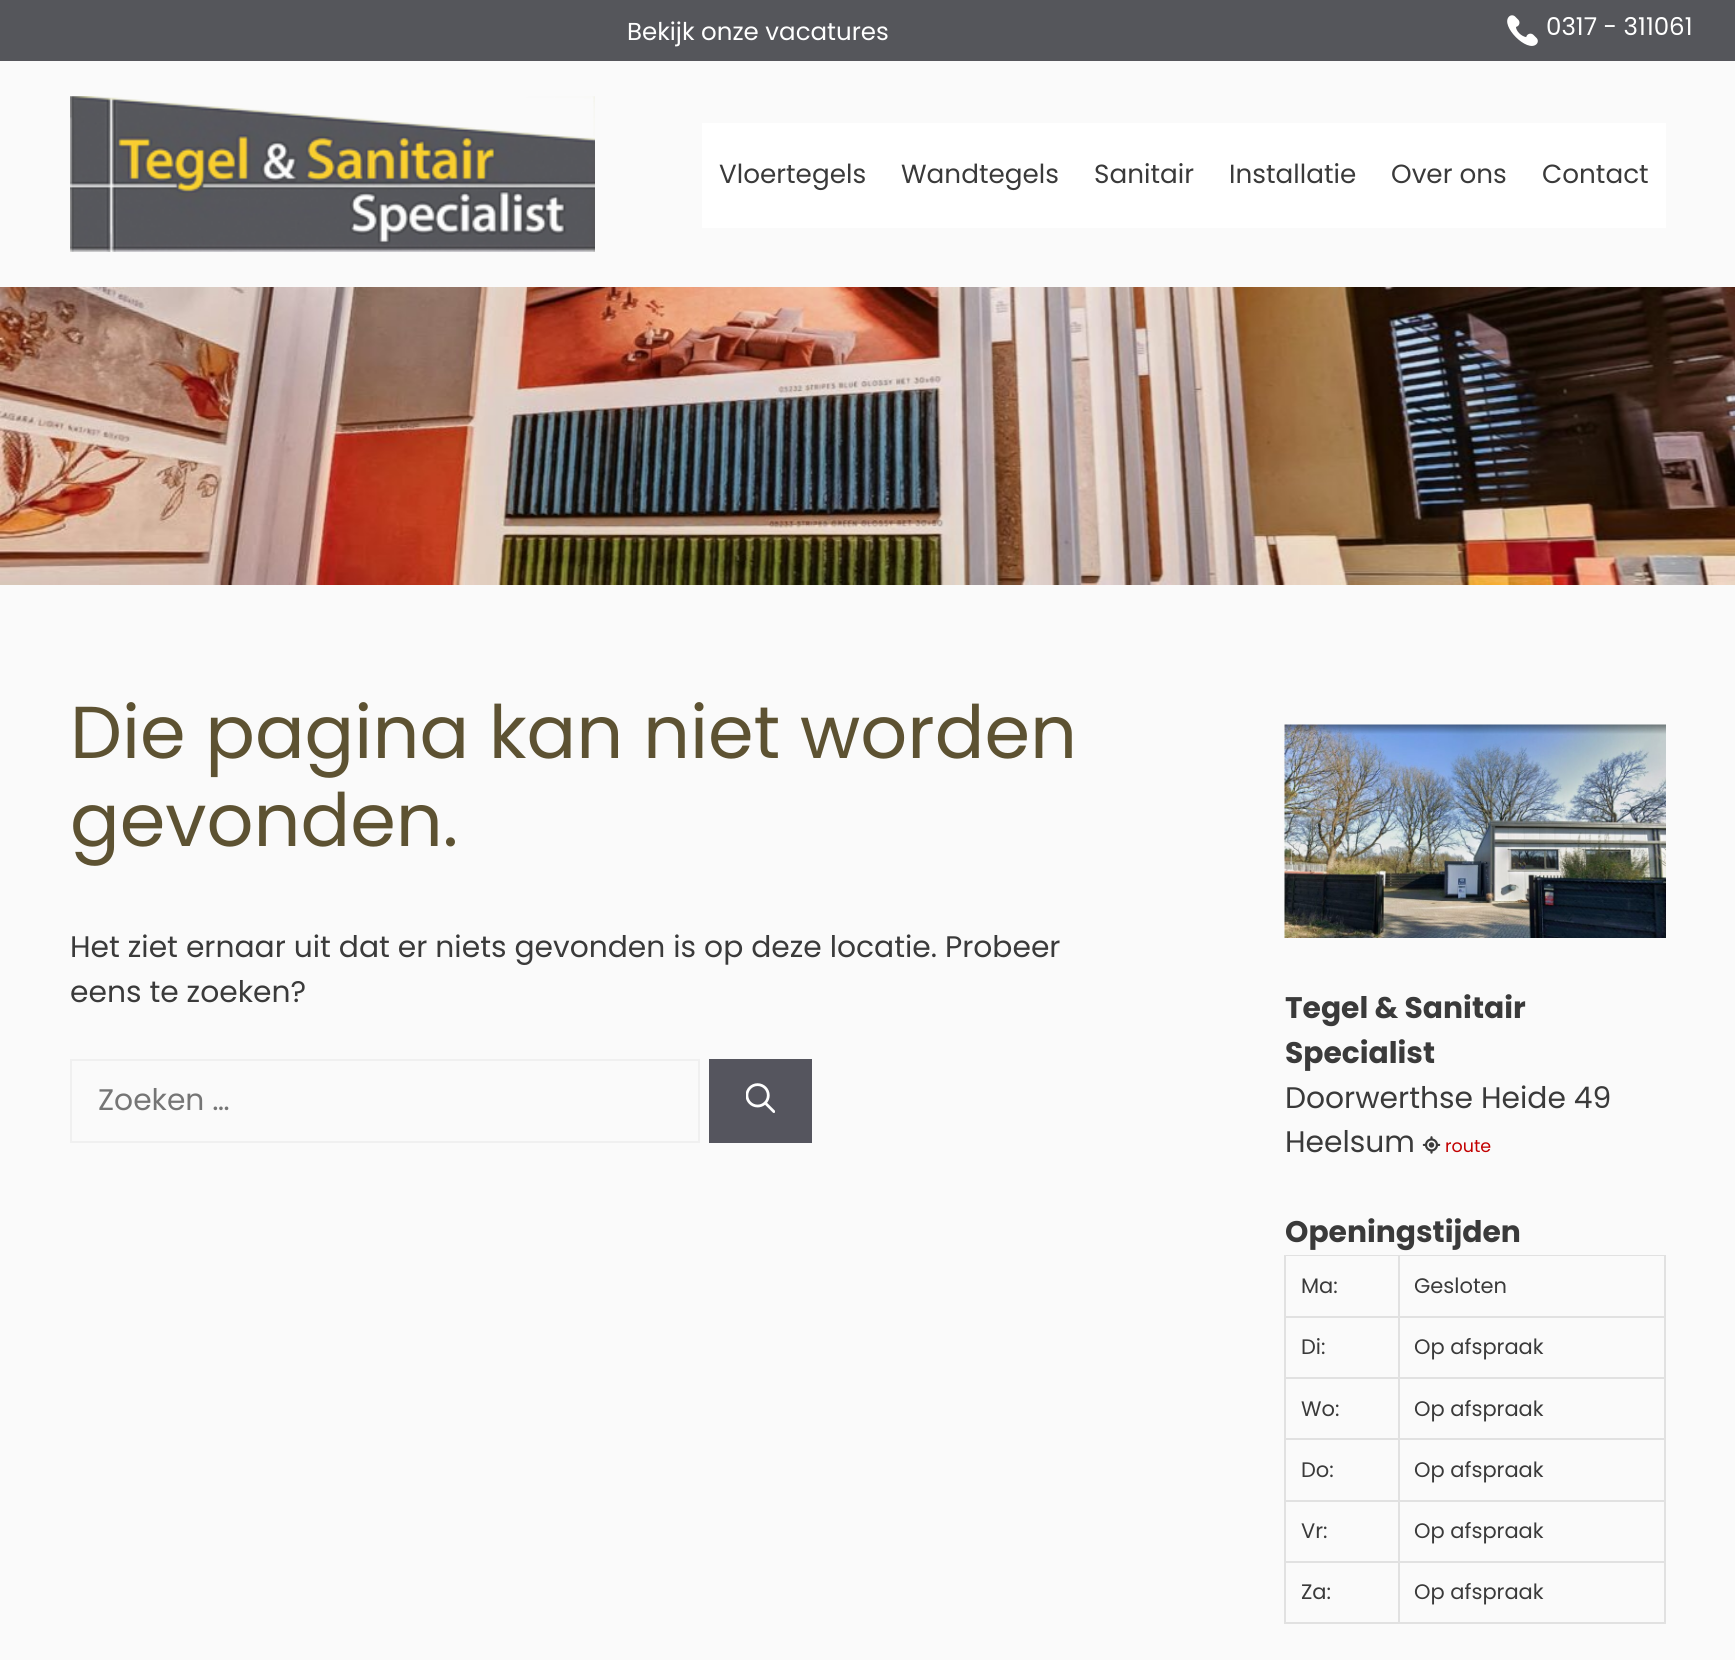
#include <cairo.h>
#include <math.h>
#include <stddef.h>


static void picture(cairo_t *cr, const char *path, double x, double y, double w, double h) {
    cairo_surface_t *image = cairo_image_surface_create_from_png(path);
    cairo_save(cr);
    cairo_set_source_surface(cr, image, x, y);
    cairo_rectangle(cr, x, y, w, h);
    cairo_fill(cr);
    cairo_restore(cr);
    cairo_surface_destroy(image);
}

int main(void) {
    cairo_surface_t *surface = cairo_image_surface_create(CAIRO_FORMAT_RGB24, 1735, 1660);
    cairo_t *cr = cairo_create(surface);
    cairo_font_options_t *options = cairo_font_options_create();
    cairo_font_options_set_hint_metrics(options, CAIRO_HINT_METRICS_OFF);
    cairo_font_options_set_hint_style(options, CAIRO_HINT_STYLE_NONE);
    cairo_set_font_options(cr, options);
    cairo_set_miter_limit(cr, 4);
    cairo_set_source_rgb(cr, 0.98, 0.98, 0.98);
    cairo_paint(cr);
    cairo_set_source_rgb(cr, 0.333, 0.337, 0.357);
    cairo_rectangle(cr, 0, 0, 1735, 61);
    cairo_fill(cr);
    cairo_select_font_face(cr, "Poppins", CAIRO_FONT_SLANT_NORMAL, CAIRO_FONT_WEIGHT_NORMAL);
    cairo_set_font_size(cr, 24.5);
    cairo_set_source_rgb(cr, 1, 1, 1);
    cairo_move_to(cr, 627, 40);
    cairo_show_text(cr, "Bekijk onze vacatures");
    picture(cr, "img1.png", 1507, 15, 31, 31);
    cairo_move_to(cr, 1546, 35);
    cairo_show_text(cr, "0317 - 311061");
    picture(cr, "img2.png", 70, 96, 525, 156);
    cairo_rectangle(cr, 702, 123, 964, 105);
    cairo_fill(cr);
    cairo_set_font_size(cr, 26.25);
    cairo_set_source_rgb(cr, 0.227, 0.227, 0.227);
    cairo_move_to(cr, 719, 183);
    cairo_show_text(cr, "Vloertegels");
    cairo_move_to(cr, 901, 183);
    cairo_show_text(cr, "Wandtegels");
    cairo_move_to(cr, 1094, 183);
    cairo_show_text(cr, "Sanitair");
    cairo_move_to(cr, 1229, 183);
    cairo_show_text(cr, "Installatie");
    cairo_move_to(cr, 1391, 183);
    cairo_show_text(cr, "Over ons");
    cairo_move_to(cr, 1542, 183);
    cairo_show_text(cr, "Contact");
    picture(cr, "img3.png", 0, 287, 1735, 298);
    cairo_set_font_size(cr, 73.5);
    cairo_set_source_rgb(cr, 0.365, 0.322, 0.196);
    cairo_move_to(cr, 70, 758);
    cairo_show_text(cr, "Die pagina kan niet worden");
    cairo_move_to(cr, 70, 846);
    cairo_show_text(cr, "gevonden.");
    cairo_set_font_size(cr, 29.75);
    cairo_set_source_rgb(cr, 0.227, 0.227, 0.227);
    cairo_move_to(cr, 70, 957);
    cairo_show_text(cr, "Het ziet ernaar uit dat er niets gevonden is op deze locatie. Probeer");
    cairo_move_to(cr, 70, 1002);
    cairo_show_text(cr, "eens te zoeken?");
    cairo_rectangle(cr, 71, 1060, 628, 82);
    cairo_set_source_rgb(cr, 0.941, 0.941, 0.941);
    cairo_stroke(cr);
    cairo_set_source_rgb(cr, 0.459, 0.459, 0.459);
    cairo_move_to(cr, 98, 1110);
    cairo_show_text(cr, "Zoeken …");
    cairo_set_source_rgb(cr, 0.333, 0.333, 0.369);
    cairo_rectangle(cr, 709, 1059, 103, 84);
    cairo_fill(cr);
    picture(cr, "img4.png", 746, 1083, 29, 30);
    picture(cr, "img5.png", 1284, 724, 382, 214);
    cairo_select_font_face(cr, "Poppins", CAIRO_FONT_SLANT_NORMAL, CAIRO_FONT_WEIGHT_BOLD);
    cairo_set_source_rgb(cr, 0.227, 0.227, 0.227);
    cairo_move_to(cr, 1285, 1018);
    cairo_show_text(cr, "Tegel & Sanitair");
    cairo_move_to(cr, 1285, 1063);
    cairo_show_text(cr, "Specialist");
    cairo_select_font_face(cr, "Poppins", CAIRO_FONT_SLANT_NORMAL, CAIRO_FONT_WEIGHT_NORMAL);
    cairo_move_to(cr, 1285, 1108);
    cairo_show_text(cr, "Doorwerthse Heide 49");
    cairo_move_to(cr, 1285, 1152);
    cairo_show_text(cr, "Heelsum");
    picture(cr, "img6.png", 1422, 1136, 19, 18);
    cairo_set_font_size(cr, 17.5);
    cairo_set_source_rgb(cr, 0.761, 0, 0);
    cairo_move_to(cr, 1445, 1152);
    cairo_show_text(cr, "route");
    cairo_select_font_face(cr, "Poppins", CAIRO_FONT_SLANT_NORMAL, CAIRO_FONT_WEIGHT_BOLD);
    cairo_set_font_size(cr, 29.75);
    cairo_set_source_rgb(cr, 0.227, 0.227, 0.227);
    cairo_move_to(cr, 1285, 1242);
    cairo_show_text(cr, "Openingstijden");
    cairo_set_source_rgb(cr, 0.882, 0.882, 0.882);
    cairo_new_path(cr);
    cairo_move_to(cr, 1284, 1255);
    cairo_line_to(cr, 1666, 1255);
    cairo_line_to(cr, 1666, 1256);
    cairo_line_to(cr, 1286, 1256);
    cairo_close_path(cr);
    cairo_fill(cr);
    cairo_set_source_rgba(cr, 0, 0, 0, 0.1);
    cairo_new_path(cr);
    cairo_move_to(cr, 1284, 1624);
    cairo_line_to(cr, 1284, 1255);
    cairo_line_to(cr, 1286, 1256);
    cairo_line_to(cr, 1286, 1624);
    cairo_close_path(cr);
    cairo_fill(cr);
    cairo_set_source_rgb(cr, 0.882, 0.882, 0.882);
    cairo_new_path(cr);
    cairo_move_to(cr, 1400, 1256);
    cairo_line_to(cr, 1400, 1318);
    cairo_line_to(cr, 1398, 1316);
    cairo_line_to(cr, 1398, 1256);
    cairo_close_path(cr);
    cairo_fill(cr);
    cairo_set_source_rgba(cr, 0, 0, 0, 0.1);
    cairo_new_path(cr);
    cairo_move_to(cr, 1400, 1318);
    cairo_line_to(cr, 1286, 1318);
    cairo_line_to(cr, 1286, 1316);
    cairo_line_to(cr, 1398, 1316);
    cairo_close_path(cr);
    cairo_fill(cr);
    cairo_select_font_face(cr, "Poppins", CAIRO_FONT_SLANT_NORMAL, CAIRO_FONT_WEIGHT_NORMAL);
    cairo_set_font_size(cr, 21);
    cairo_set_source_rgb(cr, 0.227, 0.227, 0.227);
    cairo_move_to(cr, 1301, 1293);
    cairo_show_text(cr, "Ma:");
    cairo_set_source_rgb(cr, 0.882, 0.882, 0.882);
    cairo_new_path(cr);
    cairo_move_to(cr, 1666, 1256);
    cairo_line_to(cr, 1666, 1318);
    cairo_line_to(cr, 1664, 1316);
    cairo_line_to(cr, 1664, 1256);
    cairo_close_path(cr);
    cairo_fill(cr);
    cairo_set_source_rgba(cr, 0, 0, 0, 0.1);
    cairo_new_path(cr);
    cairo_move_to(cr, 1666, 1318);
    cairo_line_to(cr, 1400, 1318);
    cairo_line_to(cr, 1400, 1316);
    cairo_line_to(cr, 1664, 1316);
    cairo_close_path(cr);
    cairo_fill(cr);
    cairo_set_source_rgb(cr, 0.227, 0.227, 0.227);
    cairo_move_to(cr, 1414, 1293);
    cairo_show_text(cr, "Gesloten");
    cairo_set_source_rgb(cr, 0.882, 0.882, 0.882);
    cairo_new_path(cr);
    cairo_move_to(cr, 1400, 1318);
    cairo_line_to(cr, 1400, 1379);
    cairo_line_to(cr, 1398, 1377);
    cairo_line_to(cr, 1398, 1318);
    cairo_close_path(cr);
    cairo_fill(cr);
    cairo_set_source_rgba(cr, 0, 0, 0, 0.1);
    cairo_new_path(cr);
    cairo_move_to(cr, 1400, 1379);
    cairo_line_to(cr, 1286, 1379);
    cairo_line_to(cr, 1286, 1377);
    cairo_line_to(cr, 1398, 1377);
    cairo_close_path(cr);
    cairo_fill(cr);
    cairo_set_source_rgb(cr, 0.227, 0.227, 0.227);
    cairo_move_to(cr, 1301, 1354);
    cairo_show_text(cr, "Di:");
    cairo_set_source_rgb(cr, 0.882, 0.882, 0.882);
    cairo_new_path(cr);
    cairo_move_to(cr, 1666, 1318);
    cairo_line_to(cr, 1666, 1379);
    cairo_line_to(cr, 1664, 1377);
    cairo_line_to(cr, 1664, 1318);
    cairo_close_path(cr);
    cairo_fill(cr);
    cairo_set_source_rgba(cr, 0, 0, 0, 0.1);
    cairo_new_path(cr);
    cairo_move_to(cr, 1666, 1379);
    cairo_line_to(cr, 1400, 1379);
    cairo_line_to(cr, 1400, 1377);
    cairo_line_to(cr, 1664, 1377);
    cairo_close_path(cr);
    cairo_fill(cr);
    cairo_set_source_rgb(cr, 0.227, 0.227, 0.227);
    cairo_move_to(cr, 1414, 1354);
    cairo_show_text(cr, "Op afspraak");
    cairo_set_source_rgb(cr, 0.882, 0.882, 0.882);
    cairo_new_path(cr);
    cairo_move_to(cr, 1400, 1379);
    cairo_line_to(cr, 1400, 1440);
    cairo_line_to(cr, 1398, 1438);
    cairo_line_to(cr, 1398, 1379);
    cairo_close_path(cr);
    cairo_fill(cr);
    cairo_set_source_rgba(cr, 0, 0, 0, 0.1);
    cairo_new_path(cr);
    cairo_move_to(cr, 1400, 1440);
    cairo_line_to(cr, 1286, 1440);
    cairo_line_to(cr, 1286, 1438);
    cairo_line_to(cr, 1398, 1438);
    cairo_close_path(cr);
    cairo_fill(cr);
    cairo_set_source_rgb(cr, 0.227, 0.227, 0.227);
    cairo_move_to(cr, 1301, 1416);
    cairo_show_text(cr, "Wo:");
    cairo_set_source_rgb(cr, 0.882, 0.882, 0.882);
    cairo_new_path(cr);
    cairo_move_to(cr, 1666, 1379);
    cairo_line_to(cr, 1666, 1440);
    cairo_line_to(cr, 1664, 1438);
    cairo_line_to(cr, 1664, 1379);
    cairo_close_path(cr);
    cairo_fill(cr);
    cairo_set_source_rgba(cr, 0, 0, 0, 0.1);
    cairo_new_path(cr);
    cairo_move_to(cr, 1666, 1440);
    cairo_line_to(cr, 1400, 1440);
    cairo_line_to(cr, 1400, 1438);
    cairo_line_to(cr, 1664, 1438);
    cairo_close_path(cr);
    cairo_fill(cr);
    cairo_set_source_rgb(cr, 0.227, 0.227, 0.227);
    cairo_move_to(cr, 1414, 1416);
    cairo_show_text(cr, "Op afspraak");
    cairo_set_source_rgb(cr, 0.882, 0.882, 0.882);
    cairo_new_path(cr);
    cairo_move_to(cr, 1400, 1440);
    cairo_line_to(cr, 1400, 1502);
    cairo_line_to(cr, 1398, 1500);
    cairo_line_to(cr, 1398, 1440);
    cairo_close_path(cr);
    cairo_fill(cr);
    cairo_set_source_rgba(cr, 0, 0, 0, 0.1);
    cairo_new_path(cr);
    cairo_move_to(cr, 1400, 1502);
    cairo_line_to(cr, 1286, 1502);
    cairo_line_to(cr, 1286, 1500);
    cairo_line_to(cr, 1398, 1500);
    cairo_close_path(cr);
    cairo_fill(cr);
    cairo_set_source_rgb(cr, 0.227, 0.227, 0.227);
    cairo_move_to(cr, 1301, 1477);
    cairo_show_text(cr, "Do:");
    cairo_set_source_rgb(cr, 0.882, 0.882, 0.882);
    cairo_new_path(cr);
    cairo_move_to(cr, 1666, 1440);
    cairo_line_to(cr, 1666, 1502);
    cairo_line_to(cr, 1664, 1500);
    cairo_line_to(cr, 1664, 1440);
    cairo_close_path(cr);
    cairo_fill(cr);
    cairo_set_source_rgba(cr, 0, 0, 0, 0.1);
    cairo_new_path(cr);
    cairo_move_to(cr, 1666, 1502);
    cairo_line_to(cr, 1400, 1502);
    cairo_line_to(cr, 1400, 1500);
    cairo_line_to(cr, 1664, 1500);
    cairo_close_path(cr);
    cairo_fill(cr);
    cairo_set_source_rgb(cr, 0.227, 0.227, 0.227);
    cairo_move_to(cr, 1414, 1477);
    cairo_show_text(cr, "Op afspraak");
    cairo_set_source_rgb(cr, 0.882, 0.882, 0.882);
    cairo_new_path(cr);
    cairo_move_to(cr, 1400, 1502);
    cairo_line_to(cr, 1400, 1563);
    cairo_line_to(cr, 1398, 1561);
    cairo_line_to(cr, 1398, 1502);
    cairo_close_path(cr);
    cairo_fill(cr);
    cairo_set_source_rgba(cr, 0, 0, 0, 0.1);
    cairo_new_path(cr);
    cairo_move_to(cr, 1400, 1563);
    cairo_line_to(cr, 1286, 1563);
    cairo_line_to(cr, 1286, 1561);
    cairo_line_to(cr, 1398, 1561);
    cairo_close_path(cr);
    cairo_fill(cr);
    cairo_set_source_rgb(cr, 0.227, 0.227, 0.227);
    cairo_move_to(cr, 1301, 1538);
    cairo_show_text(cr, "Vr:");
    cairo_set_source_rgb(cr, 0.882, 0.882, 0.882);
    cairo_new_path(cr);
    cairo_move_to(cr, 1666, 1502);
    cairo_line_to(cr, 1666, 1563);
    cairo_line_to(cr, 1664, 1561);
    cairo_line_to(cr, 1664, 1502);
    cairo_close_path(cr);
    cairo_fill(cr);
    cairo_set_source_rgba(cr, 0, 0, 0, 0.1);
    cairo_new_path(cr);
    cairo_move_to(cr, 1666, 1563);
    cairo_line_to(cr, 1400, 1563);
    cairo_line_to(cr, 1400, 1561);
    cairo_line_to(cr, 1664, 1561);
    cairo_close_path(cr);
    cairo_fill(cr);
    cairo_set_source_rgb(cr, 0.227, 0.227, 0.227);
    cairo_move_to(cr, 1414, 1538);
    cairo_show_text(cr, "Op afspraak");
    cairo_set_source_rgb(cr, 0.882, 0.882, 0.882);
    cairo_new_path(cr);
    cairo_move_to(cr, 1400, 1563);
    cairo_line_to(cr, 1400, 1624);
    cairo_line_to(cr, 1398, 1622);
    cairo_line_to(cr, 1398, 1563);
    cairo_close_path(cr);
    cairo_fill(cr);
    cairo_set_source_rgba(cr, 0, 0, 0, 0.1);
    cairo_new_path(cr);
    cairo_move_to(cr, 1400, 1624);
    cairo_line_to(cr, 1286, 1624);
    cairo_line_to(cr, 1286, 1622);
    cairo_line_to(cr, 1398, 1622);
    cairo_close_path(cr);
    cairo_fill(cr);
    cairo_set_source_rgb(cr, 0.227, 0.227, 0.227);
    cairo_move_to(cr, 1301, 1599);
    cairo_show_text(cr, "Za:");
    cairo_set_source_rgb(cr, 0.882, 0.882, 0.882);
    cairo_new_path(cr);
    cairo_move_to(cr, 1666, 1563);
    cairo_line_to(cr, 1666, 1624);
    cairo_line_to(cr, 1664, 1622);
    cairo_line_to(cr, 1664, 1563);
    cairo_close_path(cr);
    cairo_fill(cr);
    cairo_set_source_rgba(cr, 0, 0, 0, 0.1);
    cairo_new_path(cr);
    cairo_move_to(cr, 1666, 1624);
    cairo_line_to(cr, 1400, 1624);
    cairo_line_to(cr, 1400, 1622);
    cairo_line_to(cr, 1664, 1622);
    cairo_close_path(cr);
    cairo_fill(cr);
    cairo_set_source_rgb(cr, 0.227, 0.227, 0.227);
    cairo_move_to(cr, 1414, 1599);
    cairo_show_text(cr, "Op afspraak");
    cairo_surface_write_to_png(surface, "page.png");
    cairo_font_options_destroy(options);
    cairo_destroy(cr);
    cairo_surface_destroy(surface);
    return 0;
}
